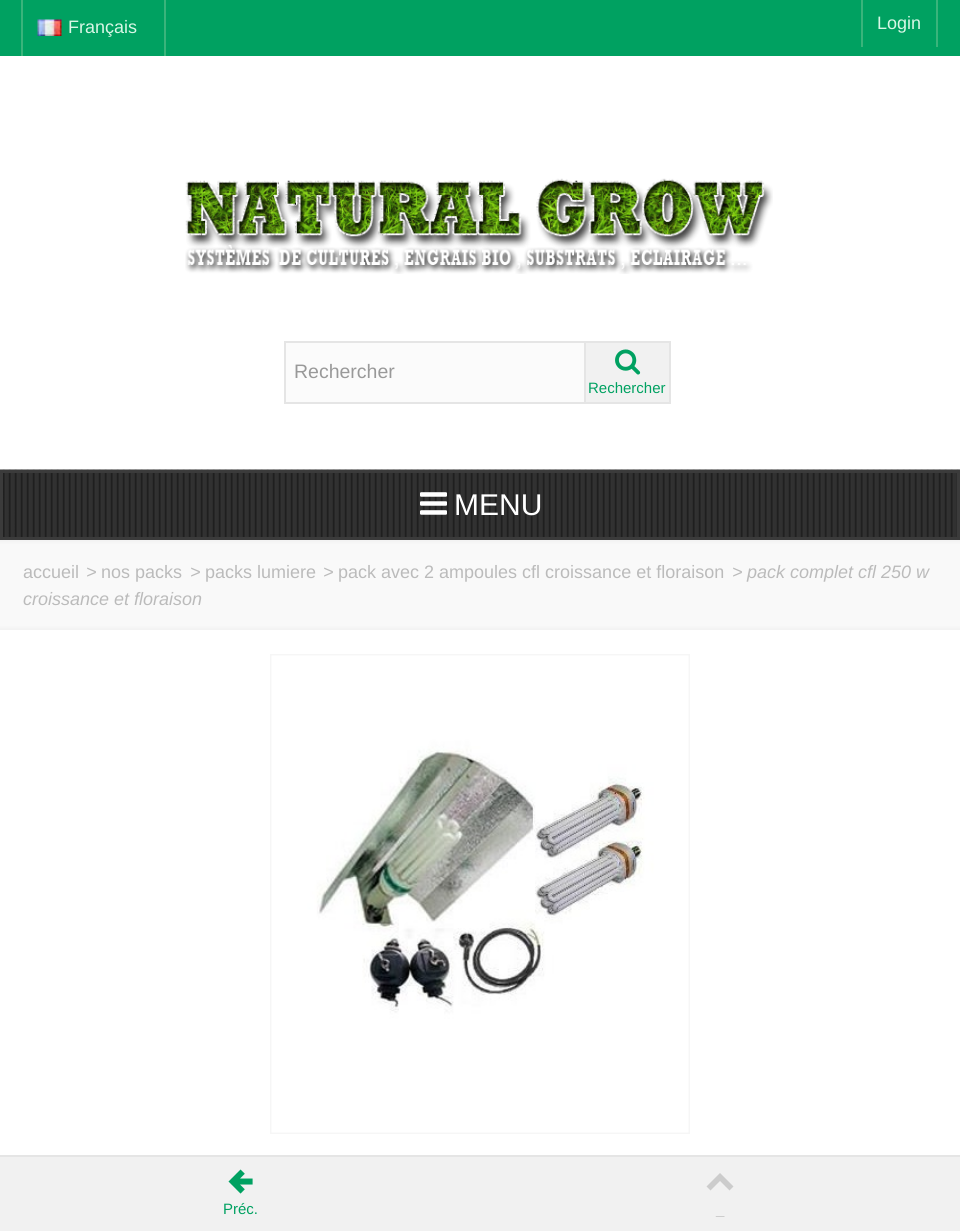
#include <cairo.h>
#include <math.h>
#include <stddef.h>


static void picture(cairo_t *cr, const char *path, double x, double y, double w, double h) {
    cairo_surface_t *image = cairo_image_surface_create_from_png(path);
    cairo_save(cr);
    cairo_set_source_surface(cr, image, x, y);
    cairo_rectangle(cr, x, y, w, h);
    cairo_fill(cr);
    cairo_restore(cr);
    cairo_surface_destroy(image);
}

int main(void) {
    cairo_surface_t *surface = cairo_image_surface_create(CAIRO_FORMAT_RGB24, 960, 1231);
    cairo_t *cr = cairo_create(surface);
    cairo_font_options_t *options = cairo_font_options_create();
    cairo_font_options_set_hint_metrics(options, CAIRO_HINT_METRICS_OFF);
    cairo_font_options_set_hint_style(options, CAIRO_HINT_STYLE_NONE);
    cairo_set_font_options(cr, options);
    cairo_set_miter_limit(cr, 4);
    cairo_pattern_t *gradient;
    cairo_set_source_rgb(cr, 1, 1, 1);
    cairo_paint(cr);
    cairo_set_source_rgb(cr, 0, 0.631, 0.38);
    cairo_rectangle(cr, 0, 0, 960, 56);
    cairo_fill(cr);
    cairo_set_source_rgb(cr, 0.227, 0.706, 0.482);
    cairo_rectangle(cr, 164, 0, 2, 56);
    cairo_fill(cr);
    cairo_rectangle(cr, 21, 0, 2, 56);
    cairo_fill(cr);
    picture(cr, "img1.png", 37, 19, 25, 17);
    cairo_select_font_face(cr, "Liberation Sans", CAIRO_FONT_SLANT_NORMAL, CAIRO_FONT_WEIGHT_NORMAL);
    cairo_set_font_size(cr, 18);
    cairo_set_source_rgb(cr, 0.847, 0.965, 0.902);
    cairo_move_to(cr, 68, 33);
    cairo_show_text(cr, "Français");
    cairo_set_source_rgb(cr, 0.227, 0.706, 0.482);
    cairo_rectangle(cr, 936, 0, 2, 47);
    cairo_fill(cr);
    cairo_rectangle(cr, 861, 0, 2, 47);
    cairo_fill(cr);
    cairo_set_source_rgb(cr, 0.847, 0.965, 0.902);
    cairo_move_to(cr, 877, 29);
    cairo_show_text(cr, "Login");
    picture(cr, "img2.png", 185, 178, 588, 96);
    cairo_set_source_rgb(cr, 0.984, 0.984, 0.984);
    cairo_rectangle(cr, 286, 343, 298, 59);
    cairo_fill(cr);
    cairo_set_source_rgb(cr, 0.898, 0.898, 0.898);
    cairo_rectangle(cr, 284, 341, 300, 2);
    cairo_fill(cr);
    cairo_rectangle(cr, 284, 402, 300, 2);
    cairo_fill(cr);
    cairo_rectangle(cr, 284, 341, 2, 63);
    cairo_fill(cr);
    cairo_set_font_size(cr, 19.5);
    cairo_set_source_rgb(cr, 0.6, 0.6, 0.6);
    cairo_move_to(cr, 294, 378);
    cairo_show_text(cr, "Rechercher");
    cairo_set_source_rgb(cr, 0.945, 0.945, 0.945);
    cairo_rectangle(cr, 585, 342, 85, 61);
    cairo_fill_preserve(cr);
    cairo_set_source_rgb(cr, 0.898, 0.898, 0.898);
    cairo_stroke(cr);
    picture(cr, "img3.png", 615, 349, 26, 26);
    cairo_set_font_size(cr, 15);
    cairo_set_source_rgb(cr, 0, 0.631, 0.38);
    cairo_move_to(cr, 588, 393);
    cairo_show_text(cr, "Rechercher");
    picture(cr, "img4.png", 0, 469, 960, 68);
    cairo_rectangle(cr, 1.5, 471.5, 957, 67);
    cairo_set_source_rgb(cr, 0.231, 0.231, 0.231);
    cairo_set_line_width(cr, 3);
    cairo_stroke(cr);
    picture(cr, "img5.png", 420, 492, 27, 23);
    cairo_set_font_size(cr, 30);
    cairo_set_source_rgb(cr, 1, 1, 1);
    cairo_move_to(cr, 454, 515);
    cairo_show_text(cr, "MENU");
    gradient = cairo_pattern_create_linear(480, 540, 480, 630);
    cairo_pattern_add_color_stop_rgba(gradient, 0, 0.949, 0.949, 0.949, 1);
    cairo_pattern_add_color_stop_rgba(gradient, 0.05, 0.976, 0.976, 0.976, 1);
    cairo_pattern_add_color_stop_rgba(gradient, 0.95, 0.976, 0.976, 0.976, 1);
    cairo_pattern_add_color_stop_rgba(gradient, 1, 0.949, 0.949, 0.949, 1);
    cairo_set_source(cr, gradient);
    cairo_pattern_destroy(gradient);
    cairo_rectangle(cr, 0, 540, 960, 90);
    cairo_fill(cr);
    cairo_set_font_size(cr, 18);
    cairo_set_source_rgb(cr, 0.733, 0.733, 0.733);
    cairo_move_to(cr, 23, 578);
    cairo_show_text(cr, "accueil");
    cairo_select_font_face(cr, "Liberation Sans", CAIRO_FONT_SLANT_ITALIC, CAIRO_FONT_WEIGHT_NORMAL);
    cairo_move_to(cr, 86, 578);
    cairo_show_text(cr, ">");
    cairo_select_font_face(cr, "Liberation Sans", CAIRO_FONT_SLANT_NORMAL, CAIRO_FONT_WEIGHT_NORMAL);
    cairo_move_to(cr, 101, 578);
    cairo_show_text(cr, "nos packs");
    cairo_select_font_face(cr, "Liberation Sans", CAIRO_FONT_SLANT_ITALIC, CAIRO_FONT_WEIGHT_NORMAL);
    cairo_move_to(cr, 190, 578);
    cairo_show_text(cr, ">");
    cairo_select_font_face(cr, "Liberation Sans", CAIRO_FONT_SLANT_NORMAL, CAIRO_FONT_WEIGHT_NORMAL);
    cairo_move_to(cr, 205, 578);
    cairo_show_text(cr, "packs lumiere");
    cairo_select_font_face(cr, "Liberation Sans", CAIRO_FONT_SLANT_ITALIC, CAIRO_FONT_WEIGHT_NORMAL);
    cairo_move_to(cr, 323, 578);
    cairo_show_text(cr, ">");
    cairo_select_font_face(cr, "Liberation Sans", CAIRO_FONT_SLANT_NORMAL, CAIRO_FONT_WEIGHT_NORMAL);
    cairo_move_to(cr, 338, 578);
    cairo_show_text(cr, "pack avec 2 ampoules cfl croissance et floraison");
    cairo_select_font_face(cr, "Liberation Sans", CAIRO_FONT_SLANT_ITALIC, CAIRO_FONT_WEIGHT_NORMAL);
    cairo_move_to(cr, 732, 578);
    cairo_show_text(cr, ">");
    cairo_move_to(cr, 747, 578);
    cairo_show_text(cr, "pack complet cfl 250 w");
    cairo_move_to(cr, 23, 605);
    cairo_show_text(cr, "croissance et floraison");
    cairo_rectangle(cr, 271, 655, 418, 478);
    cairo_set_source_rgb(cr, 0.961, 0.961, 0.961);
    cairo_set_line_width(cr, 2);
    cairo_stroke(cr);
    picture(cr, "img6.png", 271, 655, 418, 478);
    cairo_set_source_rgb(cr, 0.945, 0.945, 0.945);
    cairo_rectangle(cr, 0, 1157, 960, 74);
    cairo_fill(cr);
    cairo_set_source_rgb(cr, 0.898, 0.898, 0.898);
    cairo_rectangle(cr, 0, 1155, 960, 2);
    cairo_fill(cr);
    picture(cr, "img7.png", 228, 1169, 25, 25);
    cairo_select_font_face(cr, "Liberation Sans", CAIRO_FONT_SLANT_NORMAL, CAIRO_FONT_WEIGHT_NORMAL);
    cairo_set_font_size(cr, 15);
    cairo_set_source_rgb(cr, 0, 0.631, 0.38);
    cairo_move_to(cr, 223, 1214);
    cairo_show_text(cr, "Préc.");
    cairo_set_source_rgb(cr, 0.8, 0.8, 0.8);
    cairo_new_path(cr);
    cairo_move_to(cr, 706.5, 1186.5);
    cairo_line_to(cr, 720, 1173);
    cairo_line_to(cr, 733.5, 1186.5);
    cairo_line_to(cr, 729.5, 1190.5);
    cairo_line_to(cr, 720, 1181);
    cairo_line_to(cr, 710.5, 1190.5);
    cairo_close_path(cr);
    cairo_fill(cr);
    cairo_move_to(cr, 716, 1214);
    cairo_show_text(cr, "_");
    cairo_surface_write_to_png(surface, "page.png");
    cairo_font_options_destroy(options);
    cairo_destroy(cr);
    cairo_surface_destroy(surface);
    return 0;
}
